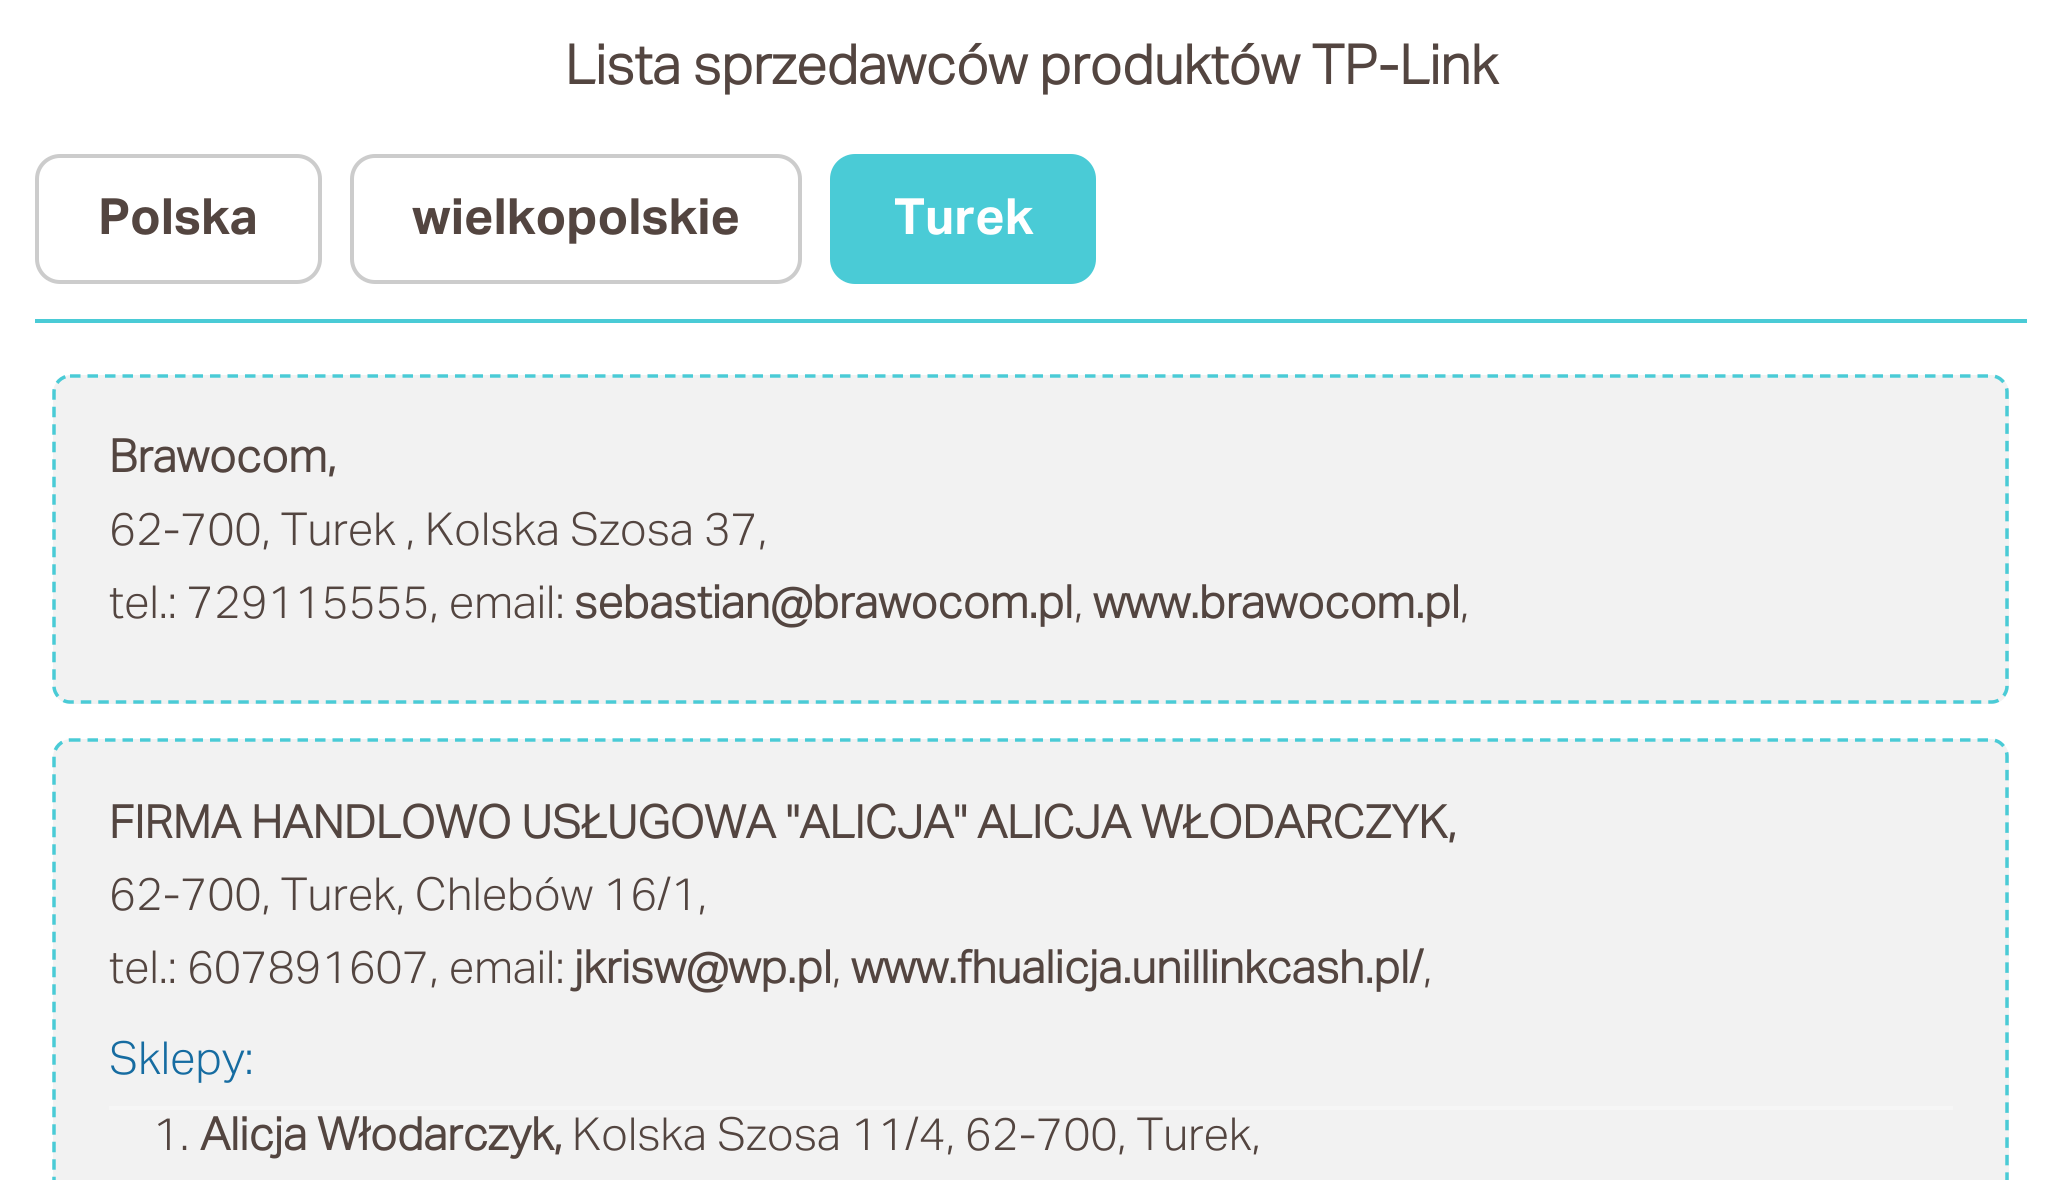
#include <cairo.h>
#include <math.h>
#include <stddef.h>


static void round_rect(cairo_t *cr, double x, double y, double w, double h, double r) {
    cairo_new_sub_path(cr);
    cairo_arc(cr, x + w - r, y + h - r, r, 0, M_PI / 2);
    cairo_arc(cr, x + r, y + h - r, r, M_PI / 2, M_PI);
    cairo_arc(cr, x + r, y + r, r, M_PI, 1.5 * M_PI);
    cairo_arc(cr, x + w - r, y + r, r, 1.5 * M_PI, 2 * M_PI);
    cairo_close_path(cr);
}

int main(void) {
    cairo_surface_t *surface = cairo_image_surface_create(CAIRO_FORMAT_RGB24, 2061, 1180);
    cairo_t *cr = cairo_create(surface);
    cairo_font_options_t *options = cairo_font_options_create();
    cairo_font_options_set_hint_metrics(options, CAIRO_HINT_METRICS_OFF);
    cairo_font_options_set_hint_style(options, CAIRO_HINT_STYLE_NONE);
    cairo_set_font_options(cr, options);
    cairo_set_miter_limit(cr, 4);
    cairo_set_source_rgb(cr, 1, 1, 1);
    cairo_paint(cr);
    cairo_select_font_face(cr, "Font", CAIRO_FONT_SLANT_NORMAL, CAIRO_FONT_WEIGHT_BOLD);
    cairo_set_font_size(cr, 54.6);
    cairo_set_source_rgb(cr, 0.325, 0.271, 0.251);
    cairo_move_to(cr, 565, 84);
    cairo_show_text(cr, "Lista sprzedawców produktów TP-Link");
    cairo_set_source_rgb(cr, 0.29, 0.796, 0.839);
    cairo_rectangle(cr, 35, 319, 1992, 4);
    cairo_fill(cr);
    round_rect(cr, 37, 156, 283, 126, 23);
    cairo_set_source_rgb(cr, 0.8, 0.8, 0.8);
    cairo_set_line_width(cr, 4);
    cairo_stroke(cr);
    cairo_select_font_face(cr, "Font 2", CAIRO_FONT_SLANT_NORMAL, CAIRO_FONT_WEIGHT_BOLD);
    cairo_set_font_size(cr, 50);
    cairo_set_source_rgb(cr, 0.325, 0.271, 0.251);
    cairo_move_to(cr, 98, 234);
    cairo_show_text(cr, "Polska");
    round_rect(cr, 352, 156, 448, 126, 23);
    cairo_set_source_rgb(cr, 0.8, 0.8, 0.8);
    cairo_stroke(cr);
    cairo_set_source_rgb(cr, 0.325, 0.271, 0.251);
    cairo_move_to(cr, 412, 234);
    cairo_show_text(cr, "wielkopolskie");
    cairo_set_source_rgb(cr, 0.29, 0.796, 0.839);
    round_rect(cr, 832, 156, 262, 126, 23);
    cairo_fill_preserve(cr);
    cairo_stroke(cr);
    cairo_set_source_rgb(cr, 1, 1, 1);
    cairo_move_to(cr, 894, 234);
    cairo_show_text(cr, "Turek");
    cairo_set_source_rgb(cr, 0.949, 0.949, 0.949);
    round_rect(cr, 53, 375, 1956, 329, 18);
    cairo_fill(cr);
    cairo_new_path(cr);
    cairo_move_to(cr, 70, 376);
    cairo_line_to(cr, 1991.5, 376);
    cairo_curve_to(cr, 2000, 376, 2007, 383.5, 2007, 392);
    cairo_line_to(cr, 2007, 686);
    cairo_curve_to(cr, 2007, 694.5, 2000, 702, 1991.5, 702);
    cairo_line_to(cr, 70, 702);
    cairo_curve_to(cr, 61.5, 702, 54, 694.5, 54, 686);
    cairo_line_to(cr, 54, 392);
    cairo_curve_to(cr, 54, 383.5, 61.5, 376, 70, 376);
    cairo_close_path(cr);
    cairo_set_source_rgb(cr, 0.29, 0.796, 0.839);
    cairo_set_line_width(cr, 3.5);
    cairo_set_dash(cr, (double[]){10.5, 7}, 2, 0);
    cairo_stroke(cr);
    cairo_select_font_face(cr, "Font", CAIRO_FONT_SLANT_NORMAL, CAIRO_FONT_WEIGHT_BOLD);
    cairo_set_font_size(cr, 45.5);
    cairo_set_source_rgb(cr, 0.325, 0.271, 0.251);
    cairo_move_to(cr, 109, 472);
    cairo_show_text(cr, "Brawocom,");
    cairo_select_font_face(cr, "Font Light", CAIRO_FONT_SLANT_NORMAL, CAIRO_FONT_WEIGHT_NORMAL);
    cairo_move_to(cr, 109, 545);
    cairo_show_text(cr, "62-700, Turek , Kolska Szosa 37,");
    cairo_move_to(cr, 109, 618);
    cairo_show_text(cr, "tel.: 729115555, email:");
    cairo_select_font_face(cr, "Font", CAIRO_FONT_SLANT_NORMAL, CAIRO_FONT_WEIGHT_BOLD);
    cairo_move_to(cr, 574, 618);
    cairo_show_text(cr, "sebastian@brawocom.pl");
    cairo_select_font_face(cr, "Font Light", CAIRO_FONT_SLANT_NORMAL, CAIRO_FONT_WEIGHT_NORMAL);
    cairo_move_to(cr, 1074, 618);
    cairo_show_text(cr, ",");
    cairo_select_font_face(cr, "Font", CAIRO_FONT_SLANT_NORMAL, CAIRO_FONT_WEIGHT_BOLD);
    cairo_move_to(cr, 1093, 618);
    cairo_show_text(cr, "www.brawocom.pl");
    cairo_select_font_face(cr, "Font Light", CAIRO_FONT_SLANT_NORMAL, CAIRO_FONT_WEIGHT_NORMAL);
    cairo_move_to(cr, 1460, 618);
    cairo_show_text(cr, ",");
    cairo_set_source_rgb(cr, 0.949, 0.949, 0.949);
    round_rect(cr, 53, 739, 1956, 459, 18);
    cairo_fill(cr);
    cairo_new_path(cr);
    cairo_move_to(cr, 70, 740);
    cairo_line_to(cr, 1991.5, 740);
    cairo_curve_to(cr, 2000, 740, 2007, 747.5, 2007, 756);
    cairo_line_to(cr, 2007, 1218);
    cairo_curve_to(cr, 2007, 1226.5, 2000, 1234, 1991.5, 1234);
    cairo_line_to(cr, 70, 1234);
    cairo_curve_to(cr, 61.5, 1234, 54, 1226.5, 54, 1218);
    cairo_line_to(cr, 54, 756);
    cairo_curve_to(cr, 54, 747.5, 61.5, 740, 70, 740);
    cairo_close_path(cr);
    cairo_set_source_rgb(cr, 0.29, 0.796, 0.839);
    cairo_stroke(cr);
    cairo_select_font_face(cr, "Font", CAIRO_FONT_SLANT_NORMAL, CAIRO_FONT_WEIGHT_BOLD);
    cairo_set_source_rgb(cr, 0.325, 0.271, 0.251);
    cairo_move_to(cr, 109, 838);
    cairo_show_text(cr, "FIRMA HANDLOWO USŁUGOWA \"ALICJA\" ALICJA WŁODARCZYK,");
    cairo_select_font_face(cr, "Font Light", CAIRO_FONT_SLANT_NORMAL, CAIRO_FONT_WEIGHT_NORMAL);
    cairo_move_to(cr, 109, 910);
    cairo_show_text(cr, "62-700, Turek, Chlebów 16/1,");
    cairo_move_to(cr, 109, 983);
    cairo_show_text(cr, "tel.: 607891607, email:");
    cairo_select_font_face(cr, "Font", CAIRO_FONT_SLANT_NORMAL, CAIRO_FONT_WEIGHT_BOLD);
    cairo_move_to(cr, 574, 983);
    cairo_show_text(cr, "jkrisw@wp.pl");
    cairo_select_font_face(cr, "Font Light", CAIRO_FONT_SLANT_NORMAL, CAIRO_FONT_WEIGHT_NORMAL);
    cairo_move_to(cr, 832, 983);
    cairo_show_text(cr, ",");
    cairo_select_font_face(cr, "Font", CAIRO_FONT_SLANT_NORMAL, CAIRO_FONT_WEIGHT_BOLD);
    cairo_move_to(cr, 851, 983);
    cairo_show_text(cr, "www.fhualicja.unillinkcash.pl/");
    cairo_select_font_face(cr, "Font Light", CAIRO_FONT_SLANT_NORMAL, CAIRO_FONT_WEIGHT_NORMAL);
    cairo_move_to(cr, 1423, 983);
    cairo_show_text(cr, ",");
    cairo_set_source_rgb(cr, 0.961, 0.961, 0.961);
    cairo_rectangle(cr, 109, 1106, 1844, 4);
    cairo_fill(cr);
    cairo_set_source_rgb(cr, 0.086, 0.424, 0.631);
    cairo_move_to(cr, 109, 1074);
    cairo_show_text(cr, "Sklepy:");
    cairo_set_source_rgb(cr, 0.325, 0.271, 0.251);
    cairo_move_to(cr, 153, 1150);
    cairo_show_text(cr, "1.");
    cairo_select_font_face(cr, "Font", CAIRO_FONT_SLANT_NORMAL, CAIRO_FONT_WEIGHT_BOLD);
    cairo_move_to(cr, 200, 1150);
    cairo_show_text(cr, "Alicja Włodarczyk,");
    cairo_select_font_face(cr, "Font Light", CAIRO_FONT_SLANT_NORMAL, CAIRO_FONT_WEIGHT_NORMAL);
    cairo_move_to(cr, 572, 1150);
    cairo_show_text(cr, "Kolska Szosa 11/4, 62-700, Turek,");
    cairo_surface_write_to_png(surface, "page.png");
    cairo_font_options_destroy(options);
    cairo_destroy(cr);
    cairo_surface_destroy(surface);
    return 0;
}
